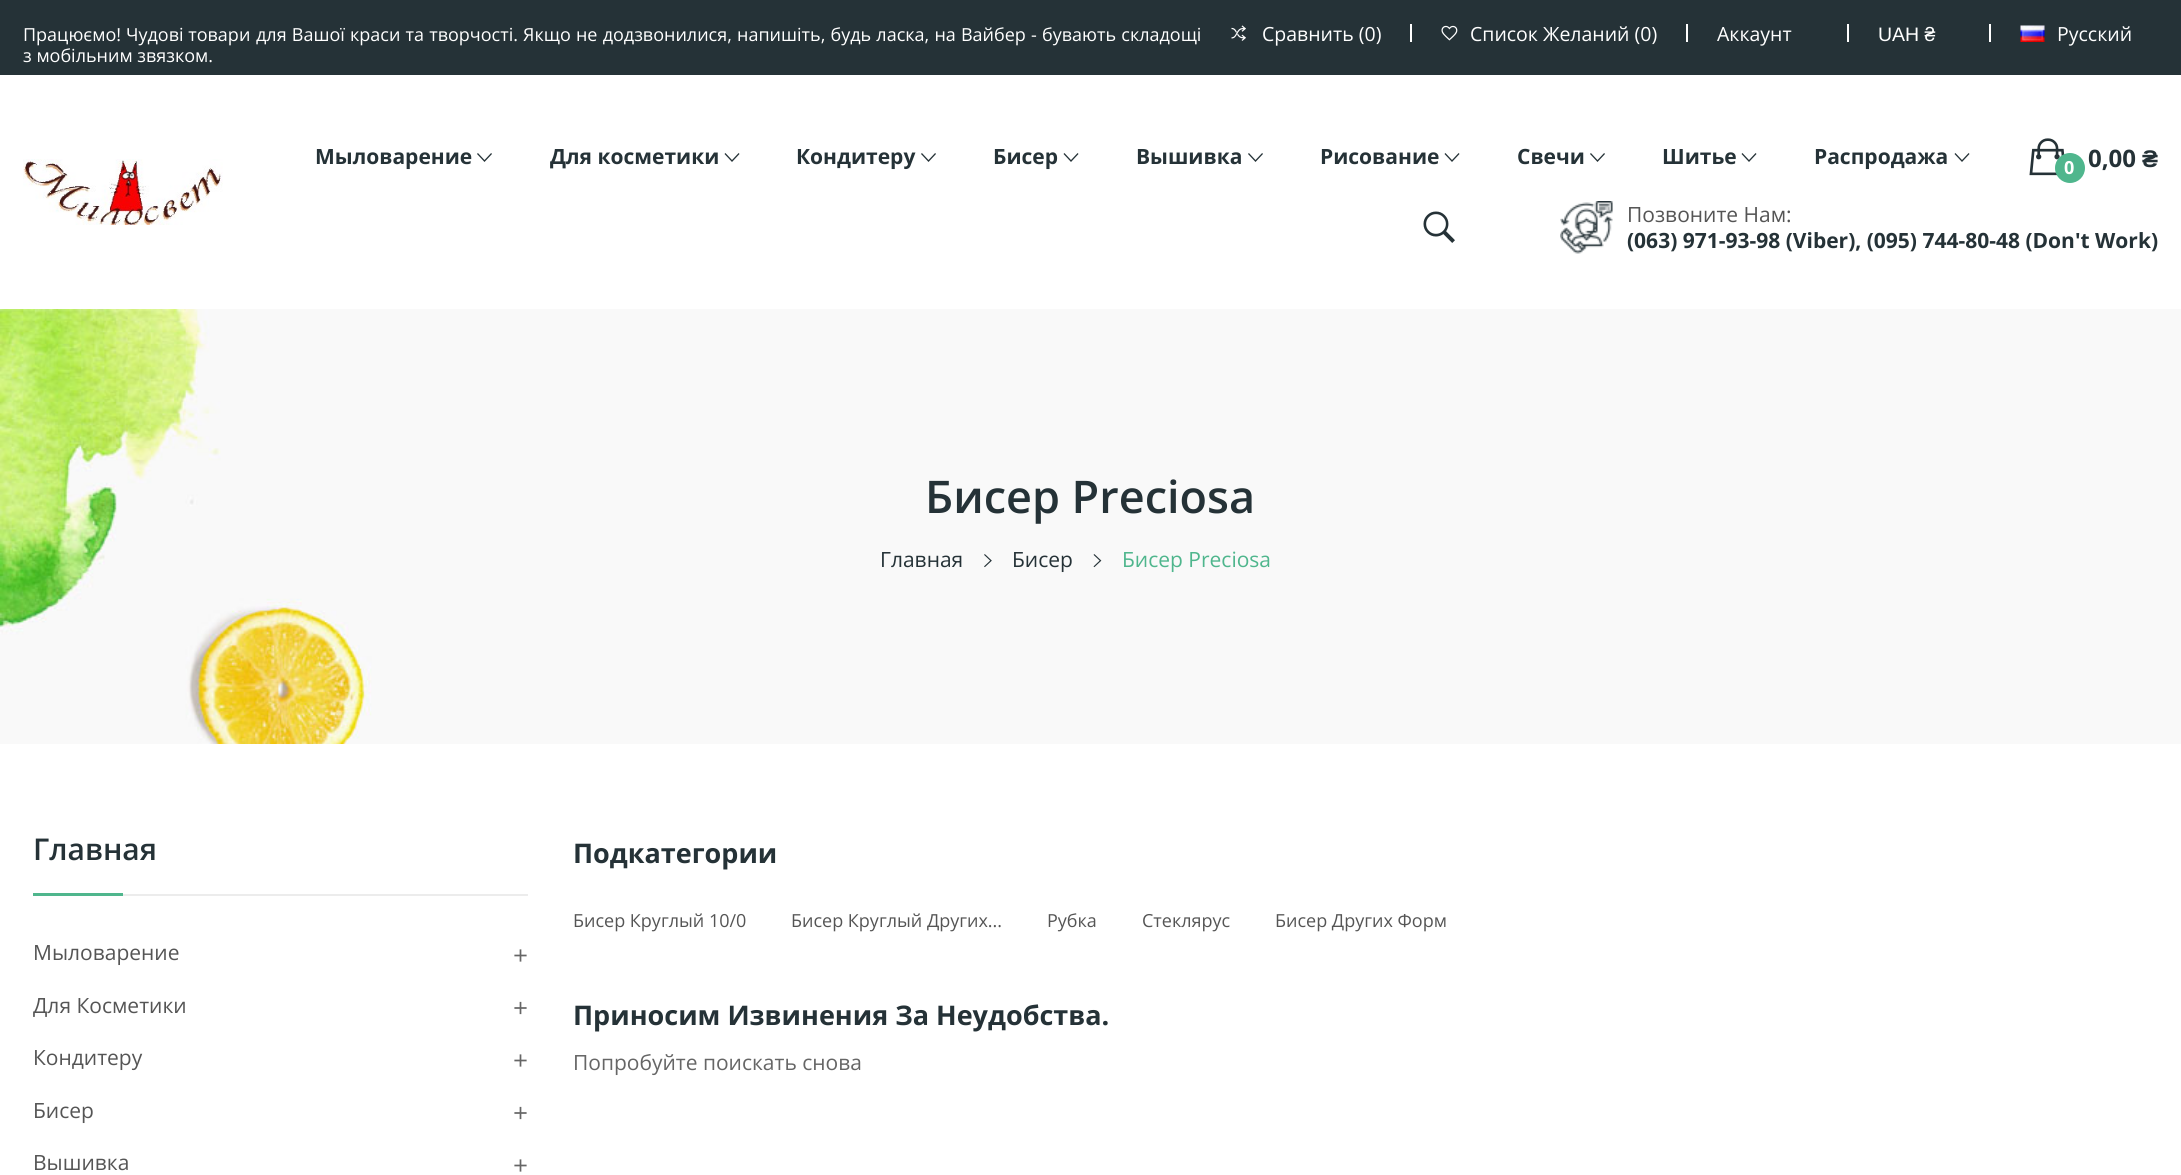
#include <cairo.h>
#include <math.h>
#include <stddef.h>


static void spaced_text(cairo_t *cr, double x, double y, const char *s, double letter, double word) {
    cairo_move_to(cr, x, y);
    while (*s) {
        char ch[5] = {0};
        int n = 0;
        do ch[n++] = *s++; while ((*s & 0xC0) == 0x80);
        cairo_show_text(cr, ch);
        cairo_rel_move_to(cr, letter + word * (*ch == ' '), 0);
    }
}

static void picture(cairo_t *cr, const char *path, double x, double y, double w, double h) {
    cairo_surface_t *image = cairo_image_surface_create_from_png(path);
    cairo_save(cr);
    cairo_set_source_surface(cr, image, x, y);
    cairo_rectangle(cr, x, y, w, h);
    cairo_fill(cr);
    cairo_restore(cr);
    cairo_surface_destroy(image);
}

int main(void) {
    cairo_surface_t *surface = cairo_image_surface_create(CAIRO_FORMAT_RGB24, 2181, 1175);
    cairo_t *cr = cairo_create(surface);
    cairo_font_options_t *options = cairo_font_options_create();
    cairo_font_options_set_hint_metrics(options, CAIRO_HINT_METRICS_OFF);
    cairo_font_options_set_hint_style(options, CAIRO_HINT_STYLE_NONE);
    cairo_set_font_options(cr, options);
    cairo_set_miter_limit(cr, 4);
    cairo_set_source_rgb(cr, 1, 1, 1);
    cairo_paint(cr);
    cairo_set_source_rgb(cr, 0.145, 0.196, 0.216);
    cairo_rectangle(cr, 0, 0, 2181, 75);
    cairo_fill(cr);
    cairo_select_font_face(cr, "Open Sans", CAIRO_FONT_SLANT_NORMAL, CAIRO_FONT_WEIGHT_NORMAL);
    cairo_set_font_size(cr, 18);
    cairo_set_source_rgb(cr, 1, 1, 1);
    cairo_move_to(cr, 23, 41);
    cairo_show_text(cr, "Працюємо!");
    cairo_move_to(cr, 126, 41);
    cairo_show_text(cr, "Чудові товари");
    spaced_text(cr, 256, 41, "для Вашої краси та творчості. Якщо не додзвонилися, напишіть, будь ласка, на Вайбер - бувають складощі", 0, 0.5);
    cairo_move_to(cr, 23, 62);
    cairo_show_text(cr, "з мобільним звязком.");
    picture(cr, "img1.png", 1231, 25, 15, 16);
    cairo_set_font_size(cr, 19.5);
    cairo_move_to(cr, 1262, 41);
    cairo_show_text(cr, "Сравнить (0)");
    cairo_rectangle(cr, 1410, 24, 2, 18);
    cairo_fill(cr);
    picture(cr, "img2.png", 1441, 25, 17, 16);
    cairo_move_to(cr, 1470, 41);
    cairo_show_text(cr, "Список Желаний (0)");
    cairo_rectangle(cr, 1686, 24, 2, 18);
    cairo_fill(cr);
    cairo_move_to(cr, 1717, 41);
    cairo_show_text(cr, "Аккаунт");
    cairo_rectangle(cr, 1847, 24, 2, 18);
    cairo_fill(cr);
    cairo_select_font_face(cr, "Liberation Sans", CAIRO_FONT_SLANT_NORMAL, CAIRO_FONT_WEIGHT_NORMAL);
    cairo_move_to(cr, 1878, 41);
    cairo_show_text(cr, "UAH ₴");
    cairo_rectangle(cr, 1989, 24, 2, 18);
    cairo_fill(cr);
    picture(cr, "img3.png", 2020, 25, 25, 17);
    cairo_select_font_face(cr, "Open Sans", CAIRO_FONT_SLANT_NORMAL, CAIRO_FONT_WEIGHT_NORMAL);
    cairo_move_to(cr, 2057, 41);
    cairo_show_text(cr, "Русский");
    picture(cr, "img4.png", 23, 159, 200, 66);
    cairo_select_font_face(cr, "Open Sans", CAIRO_FONT_SLANT_NORMAL, CAIRO_FONT_WEIGHT_BOLD);
    cairo_set_font_size(cr, 21);
    cairo_set_source_rgb(cr, 0.145, 0.196, 0.216);
    cairo_move_to(cr, 315, 164);
    cairo_show_text(cr, "Мыловарение");
    picture(cr, "img5.png", 477, 153, 15, 9);
    cairo_move_to(cr, 550, 164);
    cairo_show_text(cr, "Для косметики");
    picture(cr, "img6.png", 724, 153, 16, 9);
    cairo_move_to(cr, 796, 164);
    cairo_show_text(cr, "Кондитеру");
    picture(cr, "img5.png", 921, 153, 15, 9);
    cairo_move_to(cr, 993, 164);
    cairo_show_text(cr, "Бисер");
    picture(cr, "img6.png", 1063, 153, 16, 9);
    cairo_move_to(cr, 1136, 164);
    cairo_show_text(cr, "Вышивка");
    picture(cr, "img5.png", 1248, 153, 15, 9);
    cairo_move_to(cr, 1320, 164);
    cairo_show_text(cr, "Рисование");
    picture(cr, "img6.png", 1444, 153, 16, 9);
    cairo_move_to(cr, 1517, 164);
    cairo_show_text(cr, "Свечи");
    picture(cr, "img5.png", 1590, 153, 15, 9);
    cairo_move_to(cr, 1662, 164);
    cairo_show_text(cr, "Шитье");
    picture(cr, "img6.png", 1741, 153, 16, 9);
    cairo_move_to(cr, 1814, 164);
    cairo_show_text(cr, "Распродажа");
    picture(cr, "img6.png", 1954, 153, 16, 9);
    picture(cr, "img7.png", 2029, 138, 36, 38);
    cairo_set_source_rgb(cr, 0.31, 0.714, 0.553);
    cairo_arc(cr, 2070, 168, 15, 0, 2 * M_PI);
    cairo_fill(cr);
    cairo_set_font_size(cr, 18);
    cairo_set_source_rgb(cr, 1, 1, 1);
    cairo_move_to(cr, 2064, 174);
    cairo_show_text(cr, "0");
    cairo_set_font_size(cr, 24);
    cairo_set_source_rgb(cr, 0.145, 0.196, 0.216);
    cairo_move_to(cr, 2088, 167);
    cairo_show_text(cr, "0,00");
    cairo_select_font_face(cr, "Liberation Sans", CAIRO_FONT_SLANT_NORMAL, CAIRO_FONT_WEIGHT_BOLD);
    cairo_move_to(cr, 2142, 167);
    cairo_show_text(cr, "₴");
    picture(cr, "img8.png", 1423, 211, 32, 32);
    picture(cr, "img9.png", 1560, 201, 53, 53);
    cairo_select_font_face(cr, "Open Sans", CAIRO_FONT_SLANT_NORMAL, CAIRO_FONT_WEIGHT_NORMAL);
    cairo_set_font_size(cr, 21);
    cairo_set_source_rgb(cr, 0.333, 0.333, 0.333);
    cairo_move_to(cr, 1627, 222);
    cairo_show_text(cr, "Позвоните Нам:");
    cairo_select_font_face(cr, "Open Sans", CAIRO_FONT_SLANT_NORMAL, CAIRO_FONT_WEIGHT_BOLD);
    cairo_set_source_rgb(cr, 0.145, 0.196, 0.216);
    cairo_move_to(cr, 1627, 248);
    cairo_show_text(cr, "(063) 971-93-98 (Viber), (095) 744-80-48 (Don't Work)");
    picture(cr, "img10.png", 0, 309, 2181, 435);
    cairo_select_font_face(cr, "Open Sans SemiBold", CAIRO_FONT_SLANT_NORMAL, CAIRO_FONT_WEIGHT_NORMAL);
    cairo_set_font_size(cr, 45);
    cairo_move_to(cr, 925, 513);
    cairo_show_text(cr, "Бисер Preciosa");
    cairo_select_font_face(cr, "Open Sans", CAIRO_FONT_SLANT_NORMAL, CAIRO_FONT_WEIGHT_NORMAL);
    cairo_set_font_size(cr, 21);
    cairo_move_to(cr, 880, 567);
    cairo_show_text(cr, "Главная");
    picture(cr, "img11.png", 984, 554, 8, 14);
    cairo_move_to(cr, 1012, 567);
    cairo_show_text(cr, "Бисер");
    picture(cr, "img12.png", 1093, 554, 9, 14);
    cairo_set_source_rgb(cr, 0.31, 0.714, 0.553);
    cairo_move_to(cr, 1122, 567);
    cairo_show_text(cr, "Бисер Preciosa");
    cairo_set_source_rgb(cr, 0.922, 0.922, 0.922);
    cairo_rectangle(cr, 123, 894, 405, 2);
    cairo_fill(cr);
    cairo_select_font_face(cr, "Open Sans SemiBold", CAIRO_FONT_SLANT_NORMAL, CAIRO_FONT_WEIGHT_NORMAL);
    cairo_set_font_size(cr, 30);
    cairo_set_source_rgb(cr, 0.145, 0.196, 0.216);
    cairo_move_to(cr, 33, 860);
    cairo_show_text(cr, "Главная");
    cairo_set_source_rgb(cr, 0.31, 0.714, 0.553);
    cairo_rectangle(cr, 33, 893, 90, 3);
    cairo_fill(cr);
    cairo_select_font_face(cr, "Open Sans", CAIRO_FONT_SLANT_NORMAL, CAIRO_FONT_WEIGHT_NORMAL);
    cairo_set_font_size(cr, 21);
    cairo_set_source_rgb(cr, 0.333, 0.333, 0.333);
    cairo_move_to(cr, 33, 960);
    cairo_show_text(cr, "Мыловарение");
    picture(cr, "img13.png", 514, 949, 13, 13);
    cairo_move_to(cr, 33, 1013);
    cairo_show_text(cr, "Для Косметики");
    picture(cr, "img14.png", 514, 1001, 13, 14);
    cairo_move_to(cr, 33, 1065);
    cairo_show_text(cr, "Кондитеру");
    picture(cr, "img13.png", 514, 1054, 13, 13);
    cairo_move_to(cr, 33, 1118);
    cairo_show_text(cr, "Бисер");
    picture(cr, "img14.png", 514, 1106, 13, 14);
    cairo_move_to(cr, 33, 1170);
    cairo_show_text(cr, "Вышивка");
    picture(cr, "img13.png", 514, 1159, 13, 13);
    cairo_select_font_face(cr, "Open Sans", CAIRO_FONT_SLANT_NORMAL, CAIRO_FONT_WEIGHT_BOLD);
    cairo_set_font_size(cr, 27);
    cairo_set_source_rgb(cr, 0.145, 0.196, 0.216);
    cairo_move_to(cr, 573, 863);
    cairo_show_text(cr, "Подкатегории");
    cairo_select_font_face(cr, "Open Sans", CAIRO_FONT_SLANT_NORMAL, CAIRO_FONT_WEIGHT_NORMAL);
    cairo_set_font_size(cr, 18);
    cairo_set_source_rgb(cr, 0.333, 0.333, 0.333);
    cairo_move_to(cr, 573, 927);
    cairo_show_text(cr, "Бисер Круглый 10/0");
    cairo_move_to(cr, 791, 927);
    cairo_show_text(cr, "Бисер Круглый Других...");
    cairo_move_to(cr, 1047, 927);
    cairo_show_text(cr, "Рубка");
    cairo_move_to(cr, 1142, 927);
    cairo_show_text(cr, "Стеклярус");
    cairo_move_to(cr, 1275, 927);
    cairo_show_text(cr, "Бисер Других Форм");
    cairo_select_font_face(cr, "Open Sans", CAIRO_FONT_SLANT_NORMAL, CAIRO_FONT_WEIGHT_BOLD);
    cairo_set_font_size(cr, 27);
    cairo_set_source_rgb(cr, 0.145, 0.196, 0.216);
    cairo_move_to(cr, 573, 1025);
    cairo_show_text(cr, "Приносим Извинения За Неудобства.");
    cairo_select_font_face(cr, "Open Sans", CAIRO_FONT_SLANT_NORMAL, CAIRO_FONT_WEIGHT_NORMAL);
    cairo_set_font_size(cr, 21);
    cairo_set_source_rgb(cr, 0.4, 0.4, 0.4);
    cairo_move_to(cr, 573, 1070);
    cairo_show_text(cr, "Попробуйте поискать снова");
    cairo_surface_write_to_png(surface, "page.png");
    cairo_font_options_destroy(options);
    cairo_destroy(cr);
    cairo_surface_destroy(surface);
    return 0;
}
